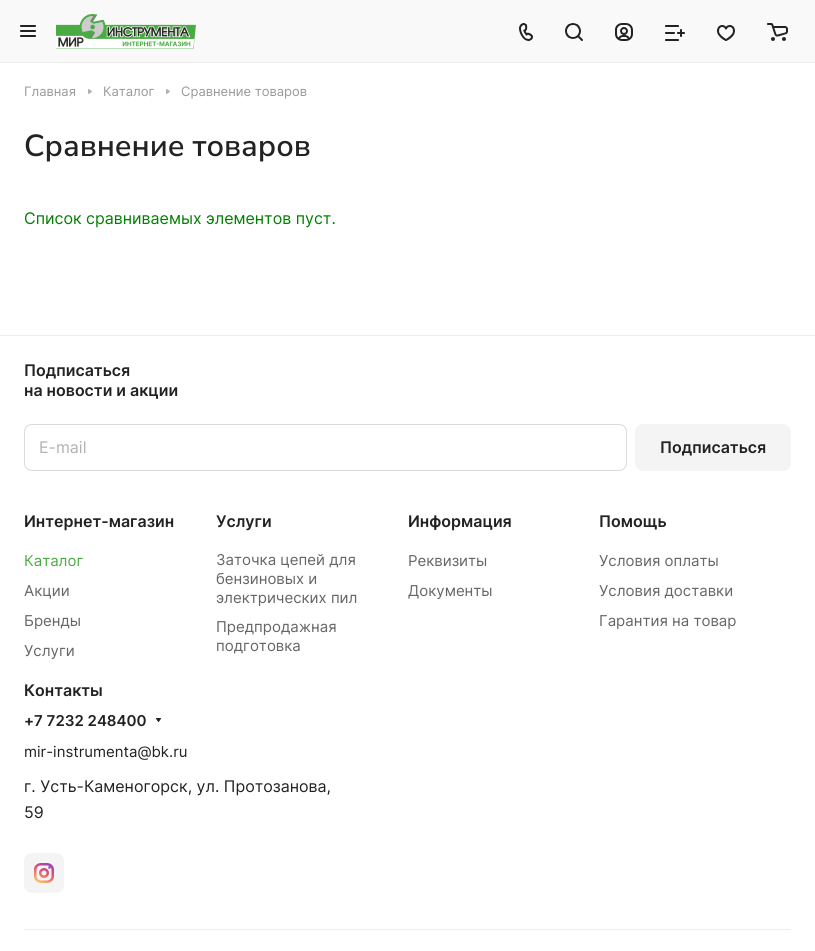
#include <cairo.h>
#include <math.h>
#include <stddef.h>


static void round_rect(cairo_t *cr, double x, double y, double w, double h, double r) {
    cairo_new_sub_path(cr);
    cairo_arc(cr, x + w - r, y + h - r, r, 0, M_PI / 2);
    cairo_arc(cr, x + r, y + h - r, r, M_PI / 2, M_PI);
    cairo_arc(cr, x + r, y + r, r, M_PI, 1.5 * M_PI);
    cairo_arc(cr, x + w - r, y + r, r, 1.5 * M_PI, 2 * M_PI);
    cairo_close_path(cr);
}

static void picture(cairo_t *cr, const char *path, double x, double y, double w, double h) {
    cairo_surface_t *image = cairo_image_surface_create_from_png(path);
    cairo_save(cr);
    cairo_set_source_surface(cr, image, x, y);
    cairo_rectangle(cr, x, y, w, h);
    cairo_fill(cr);
    cairo_restore(cr);
    cairo_surface_destroy(image);
}

int main(void) {
    cairo_surface_t *surface = cairo_image_surface_create(CAIRO_FORMAT_RGB24, 815, 951);
    cairo_t *cr = cairo_create(surface);
    cairo_font_options_t *options = cairo_font_options_create();
    cairo_font_options_set_hint_metrics(options, CAIRO_HINT_METRICS_OFF);
    cairo_font_options_set_hint_style(options, CAIRO_HINT_STYLE_NONE);
    cairo_set_font_options(cr, options);
    cairo_set_miter_limit(cr, 4);
    cairo_set_source_rgb(cr, 1, 1, 1);
    cairo_paint(cr);
    cairo_set_source_rgb(cr, 0.929, 0.929, 0.929);
    cairo_rectangle(cr, 0, 62, 815, 1);
    cairo_fill(cr);
    cairo_set_source_rgb(cr, 0.973, 0.973, 0.973);
    cairo_rectangle(cr, 0, 0, 815, 62);
    cairo_fill(cr);
    picture(cr, "img1.png", 20, 25, 16, 12);
    picture(cr, "img2.png", 56, 14, 140, 35);
    picture(cr, "img3.png", 519, 23, 14, 18);
    picture(cr, "img4.png", 565, 23, 18, 18);
    picture(cr, "img5.png", 615, 23, 18, 18);
    picture(cr, "img6.png", 665, 25, 20, 16);
    picture(cr, "img7.png", 717, 25, 18, 16);
    picture(cr, "img8.png", 767, 23, 21, 18);
    cairo_select_font_face(cr, "Inter", CAIRO_FONT_SLANT_NORMAL, CAIRO_FONT_WEIGHT_NORMAL);
    cairo_set_font_size(cr, 13);
    cairo_set_source_rgb(cr, 0.6, 0.6, 0.6);
    cairo_move_to(cr, 24, 96);
    cairo_show_text(cr, "Главная");
    picture(cr, "img9.png", 88, 89, 4, 5);
    cairo_move_to(cr, 103, 96);
    cairo_show_text(cr, "Каталог");
    picture(cr, "img9.png", 166, 89, 4, 5);
    cairo_move_to(cr, 181, 96);
    cairo_show_text(cr, "Сравнение товаров");
    cairo_select_font_face(cr, "Nunito Sans SemiBold", CAIRO_FONT_SLANT_NORMAL, CAIRO_FONT_WEIGHT_NORMAL);
    cairo_set_font_size(cr, 30.5);
    cairo_set_source_rgb(cr, 0.133, 0.133, 0.133);
    cairo_move_to(cr, 24, 156);
    cairo_show_text(cr, "Сравнение товаров");
    cairo_select_font_face(cr, "Inter", CAIRO_FONT_SLANT_NORMAL, CAIRO_FONT_WEIGHT_NORMAL);
    cairo_set_font_size(cr, 16);
    cairo_set_source_rgb(cr, 0, 0.502, 0);
    cairo_move_to(cr, 24, 224);
    cairo_show_text(cr, "Список сравниваемых элементов пуст.");
    cairo_set_source_rgb(cr, 0.929, 0.929, 0.929);
    cairo_rectangle(cr, 0, 335, 815, 1);
    cairo_fill(cr);
    cairo_select_font_face(cr, "Inter SemiBold", CAIRO_FONT_SLANT_NORMAL, CAIRO_FONT_WEIGHT_NORMAL);
    cairo_set_source_rgb(cr, 0.133, 0.133, 0.133);
    cairo_move_to(cr, 24, 376);
    cairo_show_text(cr, "Подписаться");
    cairo_move_to(cr, 24, 396);
    cairo_show_text(cr, "на новости и акции");
    round_rect(cr, 24.5, 424.5, 602, 46, 7.5);
    cairo_set_source_rgb(cr, 0.855, 0.855, 0.855);
    cairo_set_line_width(cr, 1);
    cairo_stroke(cr);
    cairo_select_font_face(cr, "Inter", CAIRO_FONT_SLANT_NORMAL, CAIRO_FONT_WEIGHT_NORMAL);
    cairo_set_source_rgb(cr, 0.698, 0.698, 0.698);
    cairo_move_to(cr, 39, 453);
    cairo_show_text(cr, "E-mail");
    cairo_set_source_rgb(cr, 0.957, 0.957, 0.957);
    round_rect(cr, 635.5, 424.5, 155, 46, 7.5);
    cairo_fill_preserve(cr);
    cairo_stroke(cr);
    cairo_select_font_face(cr, "Inter SemiBold", CAIRO_FONT_SLANT_NORMAL, CAIRO_FONT_WEIGHT_NORMAL);
    cairo_set_source_rgb(cr, 0.133, 0.133, 0.133);
    cairo_move_to(cr, 660, 453);
    cairo_show_text(cr, "Подписаться");
    cairo_move_to(cr, 24, 527);
    cairo_show_text(cr, "Интернет-магазин");
    cairo_select_font_face(cr, "Inter", CAIRO_FONT_SLANT_NORMAL, CAIRO_FONT_WEIGHT_NORMAL);
    cairo_set_font_size(cr, 15);
    cairo_set_source_rgb(cr, 0.29, 0.671, 0.259);
    cairo_move_to(cr, 24, 566);
    cairo_show_text(cr, "Каталог");
    cairo_set_source_rgb(cr, 0.4, 0.4, 0.4);
    cairo_move_to(cr, 24, 596);
    cairo_show_text(cr, "Акции");
    cairo_move_to(cr, 24, 626);
    cairo_show_text(cr, "Бренды");
    cairo_move_to(cr, 24, 656);
    cairo_show_text(cr, "Услуги");
    cairo_select_font_face(cr, "Inter SemiBold", CAIRO_FONT_SLANT_NORMAL, CAIRO_FONT_WEIGHT_NORMAL);
    cairo_set_font_size(cr, 16);
    cairo_set_source_rgb(cr, 0.133, 0.133, 0.133);
    cairo_move_to(cr, 216, 527);
    cairo_show_text(cr, "Услуги");
    cairo_select_font_face(cr, "Inter", CAIRO_FONT_SLANT_NORMAL, CAIRO_FONT_WEIGHT_NORMAL);
    cairo_set_font_size(cr, 15);
    cairo_set_source_rgb(cr, 0.4, 0.4, 0.4);
    cairo_move_to(cr, 216, 565);
    cairo_show_text(cr, "Заточка цепей для");
    cairo_move_to(cr, 216, 584);
    cairo_show_text(cr, "бензиновых и");
    cairo_move_to(cr, 216, 603);
    cairo_show_text(cr, "электрических пил");
    cairo_move_to(cr, 216, 632);
    cairo_show_text(cr, "Предпродажная");
    cairo_move_to(cr, 216, 651);
    cairo_show_text(cr, "подготовка");
    cairo_select_font_face(cr, "Inter SemiBold", CAIRO_FONT_SLANT_NORMAL, CAIRO_FONT_WEIGHT_NORMAL);
    cairo_set_font_size(cr, 16);
    cairo_set_source_rgb(cr, 0.133, 0.133, 0.133);
    cairo_move_to(cr, 408, 527);
    cairo_show_text(cr, "Информация");
    cairo_select_font_face(cr, "Inter", CAIRO_FONT_SLANT_NORMAL, CAIRO_FONT_WEIGHT_NORMAL);
    cairo_set_font_size(cr, 15);
    cairo_set_source_rgb(cr, 0.4, 0.4, 0.4);
    cairo_move_to(cr, 408, 566);
    cairo_show_text(cr, "Реквизиты");
    cairo_move_to(cr, 408, 596);
    cairo_show_text(cr, "Документы");
    cairo_select_font_face(cr, "Inter SemiBold", CAIRO_FONT_SLANT_NORMAL, CAIRO_FONT_WEIGHT_NORMAL);
    cairo_set_font_size(cr, 16);
    cairo_set_source_rgb(cr, 0.133, 0.133, 0.133);
    cairo_move_to(cr, 599, 527);
    cairo_show_text(cr, "Помощь");
    cairo_select_font_face(cr, "Inter", CAIRO_FONT_SLANT_NORMAL, CAIRO_FONT_WEIGHT_NORMAL);
    cairo_set_font_size(cr, 15);
    cairo_set_source_rgb(cr, 0.4, 0.4, 0.4);
    cairo_move_to(cr, 599, 566);
    cairo_show_text(cr, "Условия оплаты");
    cairo_move_to(cr, 599, 596);
    cairo_show_text(cr, "Условия доставки");
    cairo_move_to(cr, 599, 626);
    cairo_show_text(cr, "Гарантия на товар");
    cairo_select_font_face(cr, "Inter SemiBold", CAIRO_FONT_SLANT_NORMAL, CAIRO_FONT_WEIGHT_NORMAL);
    cairo_set_font_size(cr, 16);
    cairo_set_source_rgb(cr, 0.133, 0.133, 0.133);
    cairo_move_to(cr, 24, 696);
    cairo_show_text(cr, "Контакты");
    cairo_set_font_size(cr, 15);
    cairo_move_to(cr, 24, 726);
    cairo_show_text(cr, "+7 7232 248400");
    picture(cr, "img10.png", 156, 718, 5, 4);
    cairo_select_font_face(cr, "Inter", CAIRO_FONT_SLANT_NORMAL, CAIRO_FONT_WEIGHT_NORMAL);
    cairo_move_to(cr, 24, 757);
    cairo_show_text(cr, "mir-instrumenta@bk.ru");
    cairo_set_font_size(cr, 16);
    cairo_move_to(cr, 24, 792);
    cairo_show_text(cr, "г. Усть-Каменогорск, ул. Протозанова,");
    cairo_move_to(cr, 24, 818);
    cairo_show_text(cr, "59");
    cairo_set_source_rgb(cr, 0.957, 0.957, 0.957);
    round_rect(cr, 24, 853, 40, 40, 8);
    cairo_fill(cr);
    picture(cr, "img11.png", 34, 863, 20, 20);
    cairo_set_source_rgb(cr, 0.929, 0.929, 0.929);
    cairo_rectangle(cr, 24, 929, 767, 1);
    cairo_fill(cr);
    cairo_surface_write_to_png(surface, "page.png");
    cairo_font_options_destroy(options);
    cairo_destroy(cr);
    cairo_surface_destroy(surface);
    return 0;
}
